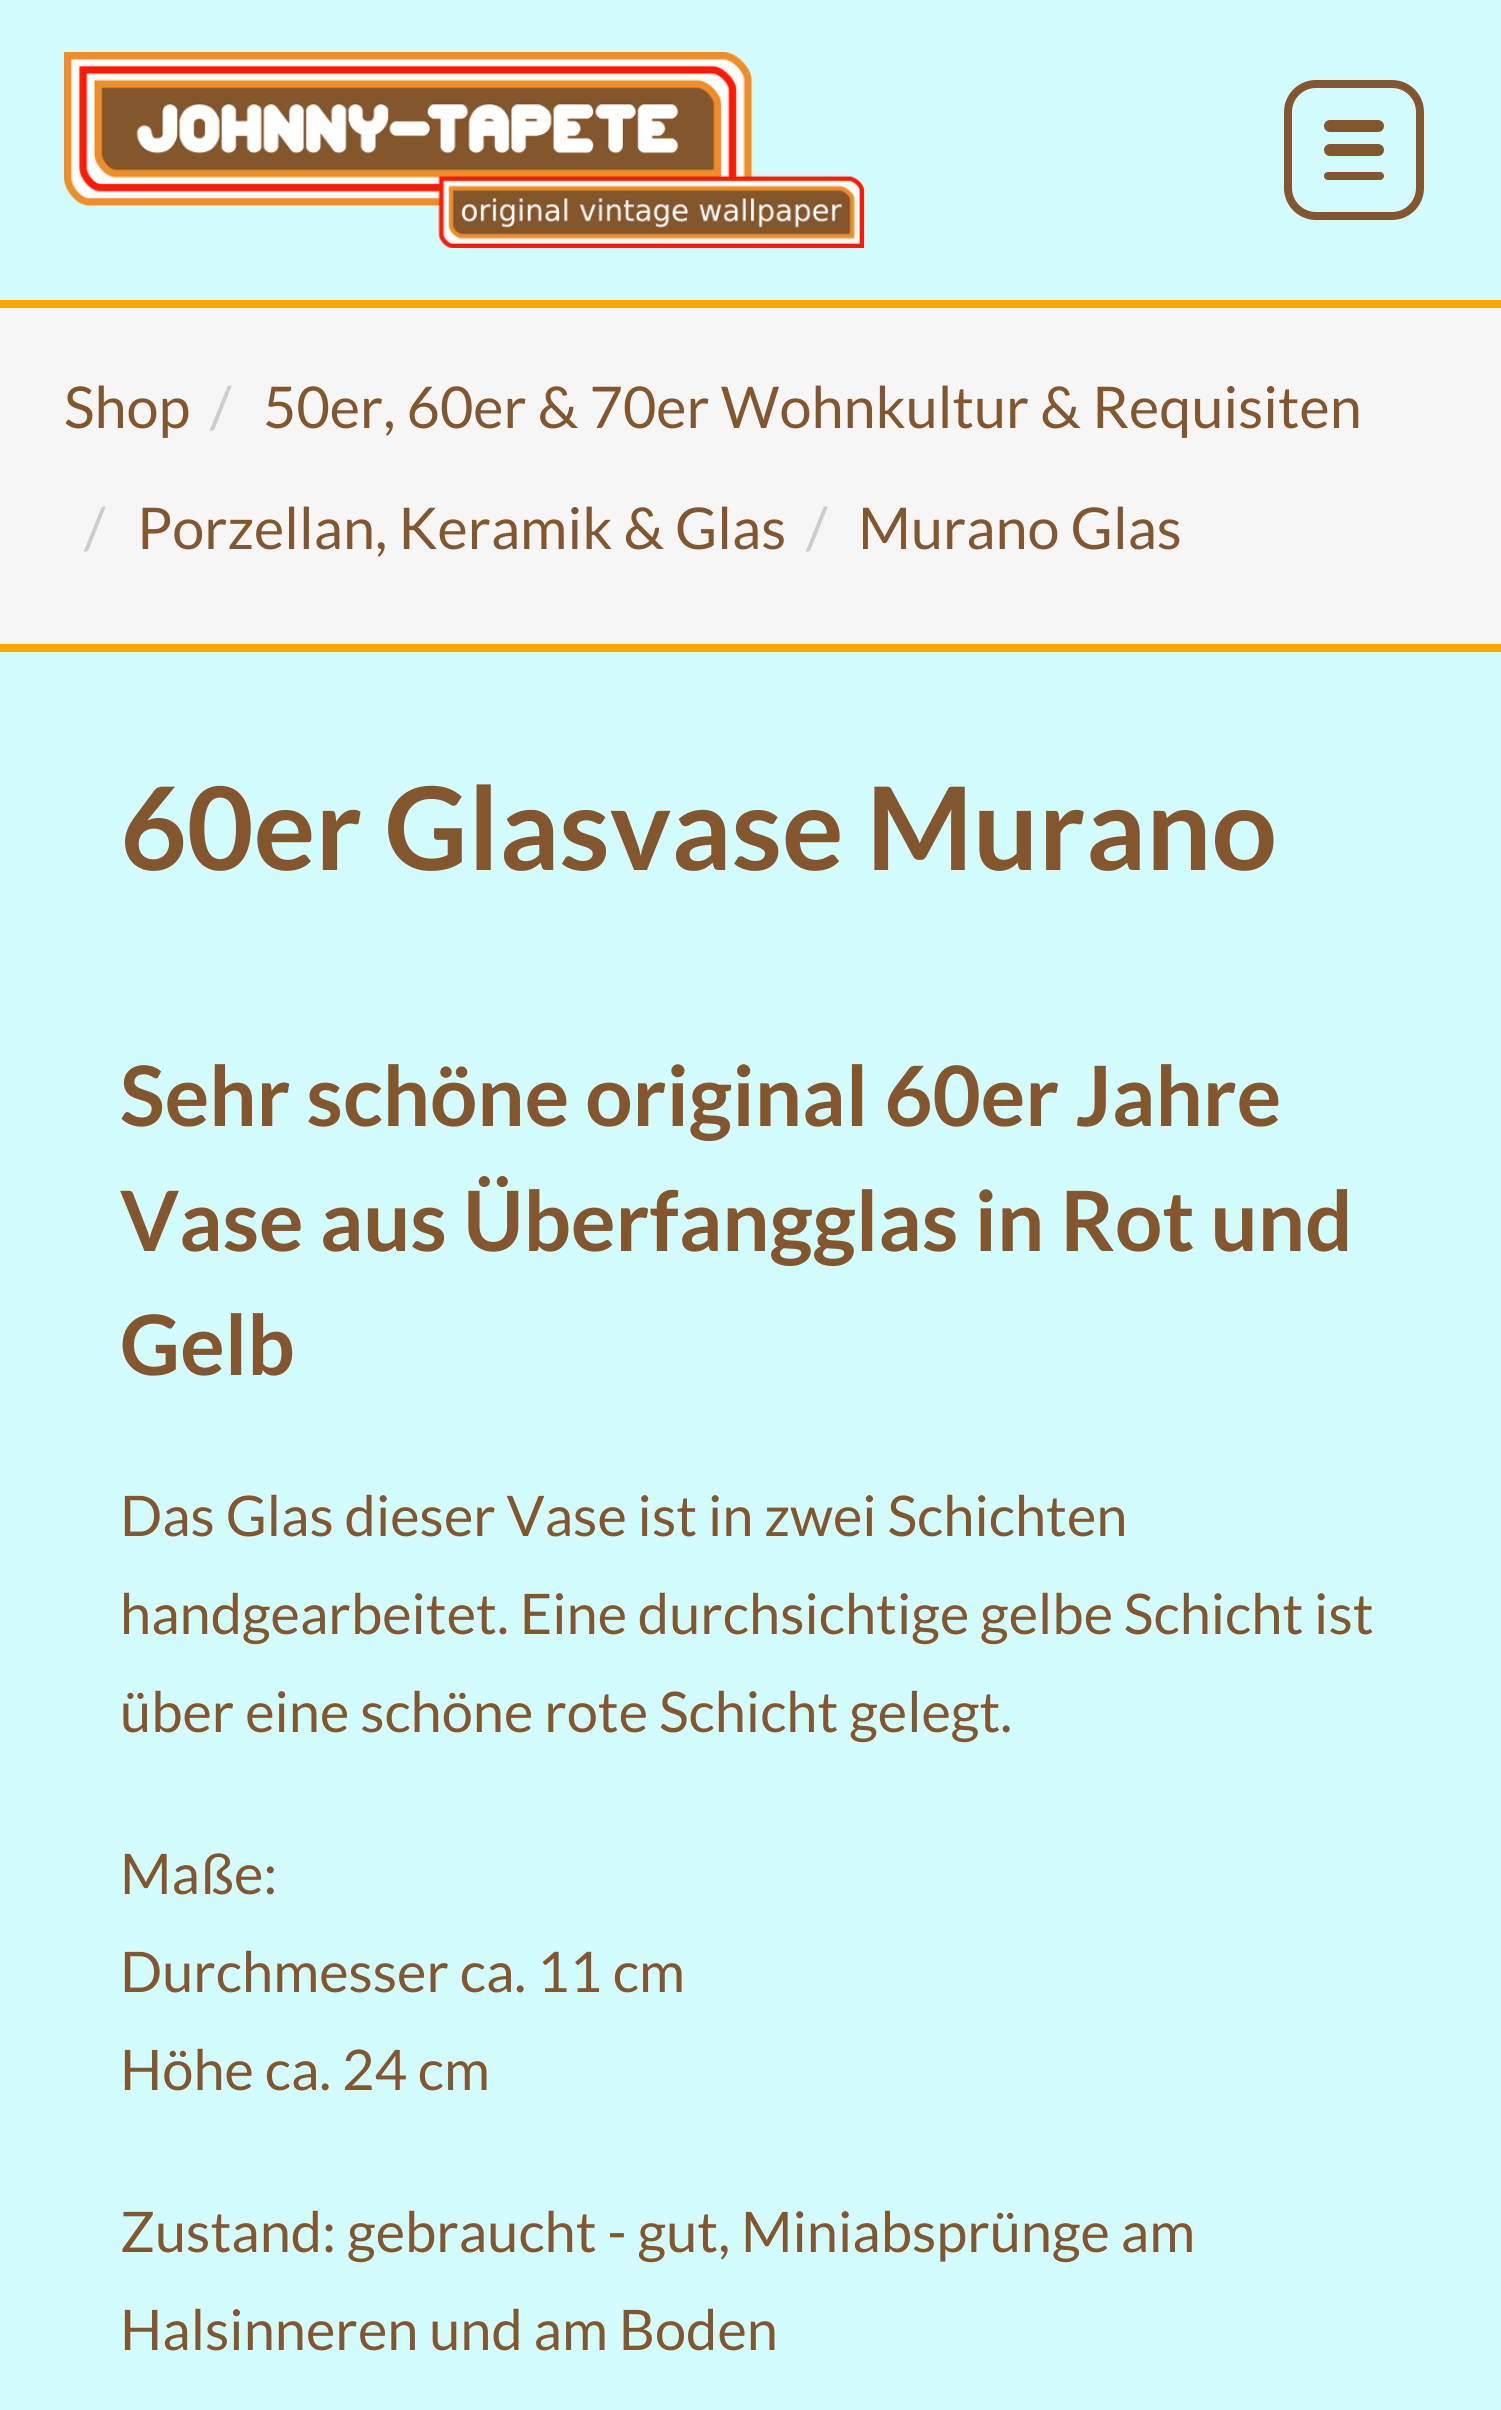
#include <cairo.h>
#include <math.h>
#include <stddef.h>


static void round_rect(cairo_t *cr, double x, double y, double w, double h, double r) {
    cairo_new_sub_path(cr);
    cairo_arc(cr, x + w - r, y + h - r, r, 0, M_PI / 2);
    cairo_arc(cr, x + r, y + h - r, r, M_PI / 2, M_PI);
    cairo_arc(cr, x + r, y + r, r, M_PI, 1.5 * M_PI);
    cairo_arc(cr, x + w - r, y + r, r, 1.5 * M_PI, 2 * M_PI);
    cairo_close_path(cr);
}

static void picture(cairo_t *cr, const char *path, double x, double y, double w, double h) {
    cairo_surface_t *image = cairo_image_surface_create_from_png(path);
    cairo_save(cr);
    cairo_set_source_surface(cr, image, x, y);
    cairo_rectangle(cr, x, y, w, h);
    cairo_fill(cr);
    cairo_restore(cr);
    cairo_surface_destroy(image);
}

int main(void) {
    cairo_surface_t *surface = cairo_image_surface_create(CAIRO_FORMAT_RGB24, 1501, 2410);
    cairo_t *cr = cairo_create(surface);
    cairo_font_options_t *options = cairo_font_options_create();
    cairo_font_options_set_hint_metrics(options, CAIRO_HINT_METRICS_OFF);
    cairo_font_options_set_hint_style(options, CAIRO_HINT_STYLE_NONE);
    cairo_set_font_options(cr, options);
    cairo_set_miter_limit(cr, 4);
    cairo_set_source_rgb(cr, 0.827, 0.988, 0.996);
    cairo_paint(cr);
    picture(cr, "img1.png", 64, 52, 800, 196);
    round_rect(cr, 1288, 84, 132, 132, 28);
    cairo_set_source_rgb(cr, 0.518, 0.337, 0.18);
    cairo_set_line_width(cr, 8);
    cairo_stroke(cr);
    round_rect(cr, 1324, 120, 60, 12, 6);
    cairo_fill(cr);
    round_rect(cr, 1324, 144, 60, 12, 6);
    cairo_fill(cr);
    round_rect(cr, 1324, 172, 60, 8, 4);
    cairo_fill(cr);
    cairo_set_source_rgb(cr, 0.961, 0.961, 0.961);
    cairo_rectangle(cr, 0, 308, 1501, 336);
    cairo_fill(cr);
    cairo_set_source_rgb(cr, 1, 0.647, 0);
    cairo_rectangle(cr, 0, 300, 1501, 8);
    cairo_fill(cr);
    cairo_rectangle(cr, 0, 644, 1501, 8);
    cairo_fill(cr);
    cairo_select_font_face(cr, "Lato", CAIRO_FONT_SLANT_NORMAL, CAIRO_FONT_WEIGHT_NORMAL);
    cairo_set_font_size(cr, 57.6);
    cairo_set_source_rgb(cr, 0.518, 0.337, 0.18);
    cairo_move_to(cr, 64, 428);
    cairo_show_text(cr, "Shop");
    cairo_set_source_rgb(cr, 0.8, 0.8, 0.8);
    cairo_move_to(cr, 210, 428);
    cairo_show_text(cr, "/");
    cairo_set_source_rgb(cr, 0.518, 0.337, 0.18);
    cairo_move_to(cr, 263, 428);
    cairo_show_text(cr, "50er, 60er & 70er Wohnkultur & Requisiten");
    cairo_set_source_rgb(cr, 0.8, 0.8, 0.8);
    cairo_move_to(cr, 84, 549);
    cairo_show_text(cr, "/");
    cairo_set_source_rgb(cr, 0.518, 0.337, 0.18);
    cairo_move_to(cr, 137, 549);
    cairo_show_text(cr, "Porzellan, Keramik & Glas");
    cairo_set_source_rgb(cr, 0.8, 0.8, 0.8);
    cairo_move_to(cr, 806, 549);
    cairo_show_text(cr, "/");
    cairo_set_source_rgb(cr, 0.518, 0.337, 0.18);
    cairo_move_to(cr, 858, 549);
    cairo_show_text(cr, "Murano Glas");
    cairo_select_font_face(cr, "Lato", CAIRO_FONT_SLANT_NORMAL, CAIRO_FONT_WEIGHT_BOLD);
    cairo_set_font_size(cr, 115.25);
    cairo_move_to(cr, 120, 870);
    cairo_show_text(cr, "60er Glasvase Murano");
    cairo_set_font_size(cr, 83.25);
    cairo_move_to(cr, 120, 1126);
    cairo_show_text(cr, "Sehr schöne original 60er Jahre");
    cairo_move_to(cr, 120, 1251);
    cairo_show_text(cr, "Vase aus Überfangglas in Rot und");
    cairo_move_to(cr, 120, 1375);
    cairo_show_text(cr, "Gelb");
    cairo_select_font_face(cr, "Lato", CAIRO_FONT_SLANT_NORMAL, CAIRO_FONT_WEIGHT_NORMAL);
    cairo_set_font_size(cr, 56);
    cairo_move_to(cr, 120, 1536);
    cairo_show_text(cr, "Das Glas dieser Vase ist in zwei Schichten");
    cairo_move_to(cr, 120, 1634);
    cairo_show_text(cr, "handgearbeitet. Eine durchsichtige gelbe Schicht ist");
    cairo_move_to(cr, 120, 1732);
    cairo_show_text(cr, "über eine schöne rote Schicht gelegt.");
    cairo_move_to(cr, 120, 1894);
    cairo_show_text(cr, "Maße:");
    cairo_move_to(cr, 120, 1992);
    cairo_show_text(cr, "Durchmesser ca. 11 cm");
    cairo_move_to(cr, 120, 2090);
    cairo_show_text(cr, "Höhe ca. 24 cm");
    cairo_move_to(cr, 120, 2252);
    cairo_show_text(cr, "Zustand: gebraucht - gut, Miniabsprünge am");
    cairo_move_to(cr, 120, 2350);
    cairo_show_text(cr, "Halsinneren und am Boden");
    cairo_surface_write_to_png(surface, "page.png");
    cairo_font_options_destroy(options);
    cairo_destroy(cr);
    cairo_surface_destroy(surface);
    return 0;
}
